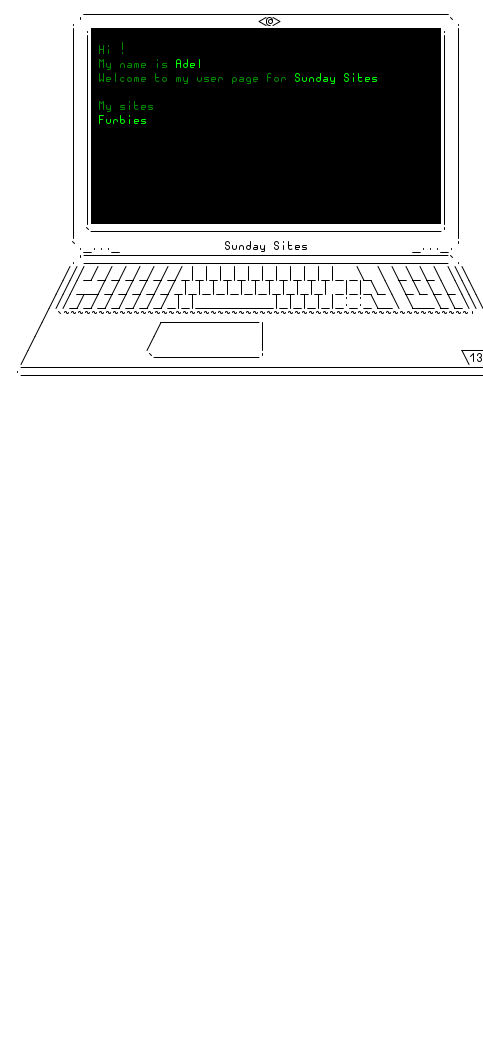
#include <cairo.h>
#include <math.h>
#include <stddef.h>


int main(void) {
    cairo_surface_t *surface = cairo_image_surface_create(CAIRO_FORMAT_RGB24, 483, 1048);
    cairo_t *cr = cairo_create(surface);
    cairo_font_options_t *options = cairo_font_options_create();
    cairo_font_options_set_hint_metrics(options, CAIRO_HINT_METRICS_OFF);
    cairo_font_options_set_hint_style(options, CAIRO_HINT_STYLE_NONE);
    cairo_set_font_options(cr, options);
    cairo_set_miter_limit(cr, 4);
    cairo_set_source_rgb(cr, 1, 1, 1);
    cairo_paint(cr);
    cairo_select_font_face(cr, "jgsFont", CAIRO_FONT_SLANT_NORMAL, CAIRO_FONT_WEIGHT_NORMAL);
    cairo_set_font_size(cr, 14);
    cairo_set_source_rgb(cr, 0, 0, 0);
    cairo_move_to(cr, 84, 12);
    cairo_show_text(cr, "____________________________________________________");
    cairo_move_to(cr, 70, 26);
    cairo_show_text(cr, ".'");
    cairo_move_to(cr, 259, 26);
    cairo_show_text(cr, "<@>");
    cairo_move_to(cr, 448, 26);
    cairo_show_text(cr, "`.");
    cairo_move_to(cr, 70, 40);
    cairo_show_text(cr, "| ¡");
    cairo_rectangle(cr, 91, 28, 350, 28);
    cairo_fill(cr);
    cairo_move_to(cr, 441, 40);
    cairo_show_text(cr, "¡ |");
    cairo_move_to(cr, 70, 54);
    cairo_show_text(cr, "| |");
    cairo_set_source_rgb(cr, 0, 0.533, 0);
    cairo_move_to(cr, 98, 54);
    cairo_show_text(cr, "Hi !");
    cairo_set_source_rgb(cr, 0, 0, 0);
    cairo_move_to(cr, 441, 54);
    cairo_show_text(cr, "| |");
    cairo_move_to(cr, 70, 68);
    cairo_show_text(cr, "| |");
    cairo_rectangle(cr, 91, 56, 350, 14);
    cairo_fill(cr);
    cairo_set_source_rgb(cr, 0, 0.533, 0);
    cairo_move_to(cr, 98, 68);
    cairo_show_text(cr, "My name is");
    cairo_set_source_rgb(cr, 0, 1, 0);
    cairo_move_to(cr, 175, 68);
    cairo_show_text(cr, "Adel");
    cairo_set_source_rgb(cr, 0, 0, 0);
    cairo_move_to(cr, 441, 68);
    cairo_show_text(cr, "| |");
    cairo_move_to(cr, 70, 82);
    cairo_show_text(cr, "| |");
    cairo_rectangle(cr, 91, 70, 350, 42);
    cairo_fill(cr);
    cairo_set_source_rgb(cr, 0, 0.533, 0);
    cairo_move_to(cr, 98, 82);
    cairo_show_text(cr, "Welcome to my user page for");
    cairo_set_source_rgb(cr, 0, 1, 0);
    cairo_move_to(cr, 294, 82);
    cairo_show_text(cr, "Sunday Sites");
    cairo_set_source_rgb(cr, 0, 0, 0);
    cairo_move_to(cr, 441, 82);
    cairo_show_text(cr, "| |");
    cairo_move_to(cr, 70, 96);
    cairo_show_text(cr, "| |");
    cairo_move_to(cr, 441, 96);
    cairo_show_text(cr, "| |");
    cairo_move_to(cr, 70, 110);
    cairo_show_text(cr, "| |");
    cairo_set_source_rgb(cr, 0, 0.533, 0);
    cairo_move_to(cr, 98, 110);
    cairo_show_text(cr, "My sites");
    cairo_set_source_rgb(cr, 0, 0, 0);
    cairo_move_to(cr, 441, 110);
    cairo_show_text(cr, "| |");
    cairo_move_to(cr, 70, 124);
    cairo_show_text(cr, "| |");
    cairo_rectangle(cr, 91, 112, 350, 112);
    cairo_fill(cr);
    cairo_set_source_rgb(cr, 0, 1, 0);
    cairo_move_to(cr, 98, 124);
    cairo_show_text(cr, "Furbies");
    cairo_set_source_rgb(cr, 0, 0, 0);
    cairo_move_to(cr, 441, 124);
    cairo_show_text(cr, "| |");
    cairo_move_to(cr, 70, 138);
    cairo_show_text(cr, "| |");
    cairo_move_to(cr, 441, 138);
    cairo_show_text(cr, "| |");
    cairo_move_to(cr, 70, 152);
    cairo_show_text(cr, "| |");
    cairo_move_to(cr, 441, 152);
    cairo_show_text(cr, "| |");
    cairo_move_to(cr, 70, 166);
    cairo_show_text(cr, "| |");
    cairo_move_to(cr, 441, 166);
    cairo_show_text(cr, "| |");
    cairo_move_to(cr, 70, 180);
    cairo_show_text(cr, "| |");
    cairo_move_to(cr, 441, 180);
    cairo_show_text(cr, "| |");
    cairo_move_to(cr, 70, 194);
    cairo_show_text(cr, "| |");
    cairo_move_to(cr, 441, 194);
    cairo_show_text(cr, "| |");
    cairo_move_to(cr, 70, 208);
    cairo_show_text(cr, "| |");
    cairo_move_to(cr, 441, 208);
    cairo_show_text(cr, "| |");
    cairo_move_to(cr, 70, 222);
    cairo_show_text(cr, "| |");
    cairo_move_to(cr, 441, 222);
    cairo_show_text(cr, "| |");
    cairo_move_to(cr, 70, 236);
    cairo_show_text(cr, "| `--------------------------------------------------' |");
    cairo_move_to(cr, 70, 250);
    cairo_show_text(cr, "`._..._               Sunday Sites               _..._.'");
    cairo_move_to(cr, 70, 264);
    cairo_show_text(cr, ".'====================================================`.");
    cairo_move_to(cr, 63, 278);
    cairo_show_text(cr, "///_/_/_/_/_/_/_/_|_|_|_|_|_|_|_|_|_|_|_ _\\_ \\ \\_\\_\\_\\ \\\\\\");
    cairo_move_to(cr, 56, 292);
    cairo_show_text(cr, "///___/_/_/_/_/_/_|_|_|_|_|_|_|_|_|_|_| _|_|_\\_\\ \\_\\_\\_\\_\\\\\\");
    cairo_move_to(cr, 49, 306);
    cairo_show_text(cr, "///_/_/_/_/_/_/_/_|_|___________|_|_|_|_|_:_:_\\__\\ \\___\\_\\_\\\\\\");
    cairo_move_to(cr, 42, 320);
    cairo_show_text(cr, "/ `~~~~~~~~~~~~~~~~~~~~~~~~~~~~~~~~~~~~~~~~~~~~~~~~~~~~~~~~~~'");
    cairo_move_to(cr, 35, 334);
    cairo_show_text(cr, "/                /¯¯¯¯¯¯¯¯¯¯¯¯¯¯|");
    cairo_move_to(cr, 28, 348);
    cairo_show_text(cr, "/                /               |                            ___");
    cairo_move_to(cr, 21, 362);
    cairo_show_text(cr, "/                 `---------------'                            \\13");
    cairo_move_to(cr, 14, 376);
    cairo_show_text(cr, "·==================================================================");
    cairo_surface_write_to_png(surface, "page.png");
    cairo_font_options_destroy(options);
    cairo_destroy(cr);
    cairo_surface_destroy(surface);
    return 0;
}
